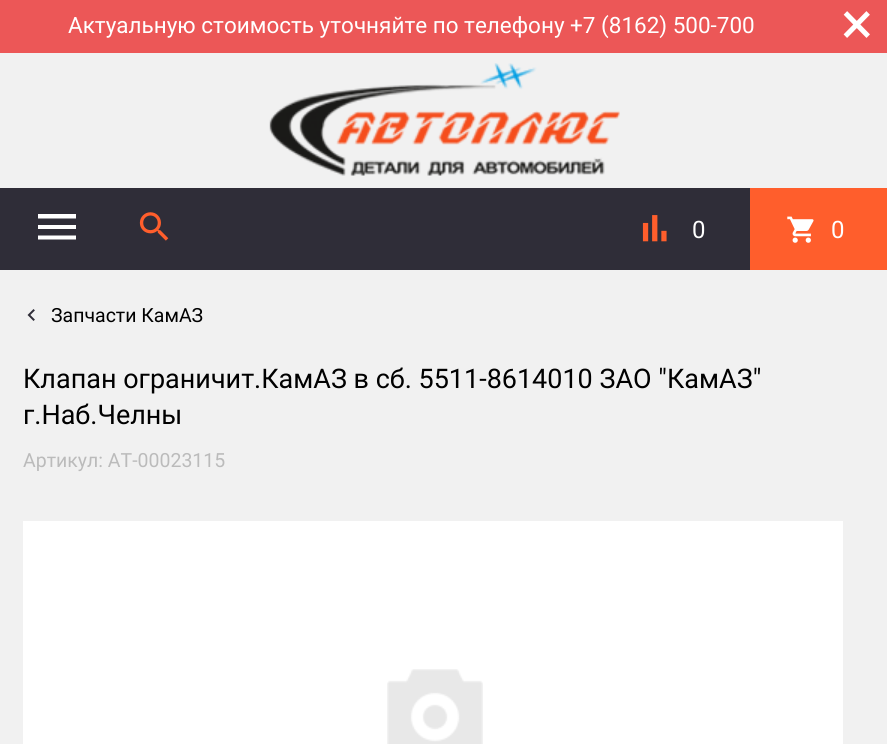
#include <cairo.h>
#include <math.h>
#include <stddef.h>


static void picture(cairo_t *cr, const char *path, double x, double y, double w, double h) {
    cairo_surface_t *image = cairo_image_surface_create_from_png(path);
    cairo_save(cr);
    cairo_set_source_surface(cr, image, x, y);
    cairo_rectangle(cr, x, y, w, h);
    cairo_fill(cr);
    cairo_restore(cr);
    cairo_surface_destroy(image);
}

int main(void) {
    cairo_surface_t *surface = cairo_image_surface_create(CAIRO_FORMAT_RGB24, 887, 744);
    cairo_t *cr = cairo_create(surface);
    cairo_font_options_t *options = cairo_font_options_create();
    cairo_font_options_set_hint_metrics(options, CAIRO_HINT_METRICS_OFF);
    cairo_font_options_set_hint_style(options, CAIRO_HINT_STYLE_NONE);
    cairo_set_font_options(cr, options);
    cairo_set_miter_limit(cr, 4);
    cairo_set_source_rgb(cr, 0.945, 0.945, 0.945);
    cairo_paint(cr);
    cairo_set_source_rgb(cr, 0.922, 0.341, 0.341);
    cairo_rectangle(cr, 0, 0, 887, 53);
    cairo_fill(cr);
    cairo_select_font_face(cr, "Roboto", CAIRO_FONT_SLANT_NORMAL, CAIRO_FONT_WEIGHT_NORMAL);
    cairo_set_font_size(cr, 22.5);
    cairo_set_source_rgb(cr, 1, 1, 1);
    cairo_move_to(cr, 68, 33);
    cairo_show_text(cr, "Актуальную стоимость уточняйте по телефону +7 (8162) 500-700");
    cairo_set_font_size(cr, 60);
    cairo_move_to(cr, 841, 44);
    cairo_show_text(cr, "×");
    picture(cr, "img1.png", 269, 63, 351, 113);
    cairo_set_source_rgb(cr, 0.184, 0.176, 0.22);
    cairo_rectangle(cr, 0, 188, 750, 82);
    cairo_fill(cr);
    cairo_set_source_rgb(cr, 1, 1, 1);
    cairo_new_path(cr);
    cairo_move_to(cr, 38, 214);
    cairo_line_to(cr, 76, 214);
    cairo_line_to(cr, 76, 218.5);
    cairo_line_to(cr, 38, 218.5);
    cairo_close_path(cr);
    cairo_move_to(cr, 38, 225);
    cairo_line_to(cr, 76, 225);
    cairo_line_to(cr, 76, 229);
    cairo_line_to(cr, 38, 229);
    cairo_close_path(cr);
    cairo_move_to(cr, 38, 235.5);
    cairo_line_to(cr, 76, 235.5);
    cairo_line_to(cr, 76, 239.5);
    cairo_line_to(cr, 38, 239.5);
    cairo_close_path(cr);
    cairo_fill(cr);
    picture(cr, "img2.png", 139, 212, 30, 29);
    picture(cr, "img3.png", 642, 215, 25, 27);
    cairo_set_font_size(cr, 24);
    cairo_move_to(cr, 692, 238);
    cairo_show_text(cr, "0");
    cairo_set_source_rgb(cr, 1, 0.369, 0.173);
    cairo_rectangle(cr, 750, 188, 137, 82);
    cairo_fill(cr);
    picture(cr, "img4.png", 787, 216, 27, 27);
    cairo_set_source_rgb(cr, 1, 1, 1);
    cairo_move_to(cr, 831, 238);
    cairo_show_text(cr, "0");
    picture(cr, "img5.png", 27, 309, 8, 12);
    cairo_set_font_size(cr, 19.5);
    cairo_set_source_rgb(cr, 0, 0, 0);
    cairo_move_to(cr, 51, 322);
    cairo_show_text(cr, "Запчасти КамАЗ");
    cairo_set_font_size(cr, 27);
    cairo_move_to(cr, 23, 388);
    cairo_show_text(cr, "Клапан ограничит.КамАЗ в сб. 5511-8614010 ЗАО \"КамАЗ\"");
    cairo_move_to(cr, 23, 424);
    cairo_show_text(cr, "г.Наб.Челны");
    cairo_set_font_size(cr, 19.5);
    cairo_set_source_rgb(cr, 0.733, 0.733, 0.733);
    cairo_move_to(cr, 23, 467);
    cairo_show_text(cr, "Артикул: АТ-00023115");
    cairo_set_source_rgb(cr, 1, 1, 1);
    cairo_rectangle(cr, 23, 521, 820, 223);
    cairo_fill(cr);
    picture(cr, "img6.png", 387, 669, 96, 75);
    cairo_surface_write_to_png(surface, "page.png");
    cairo_font_options_destroy(options);
    cairo_destroy(cr);
    cairo_surface_destroy(surface);
    return 0;
}
